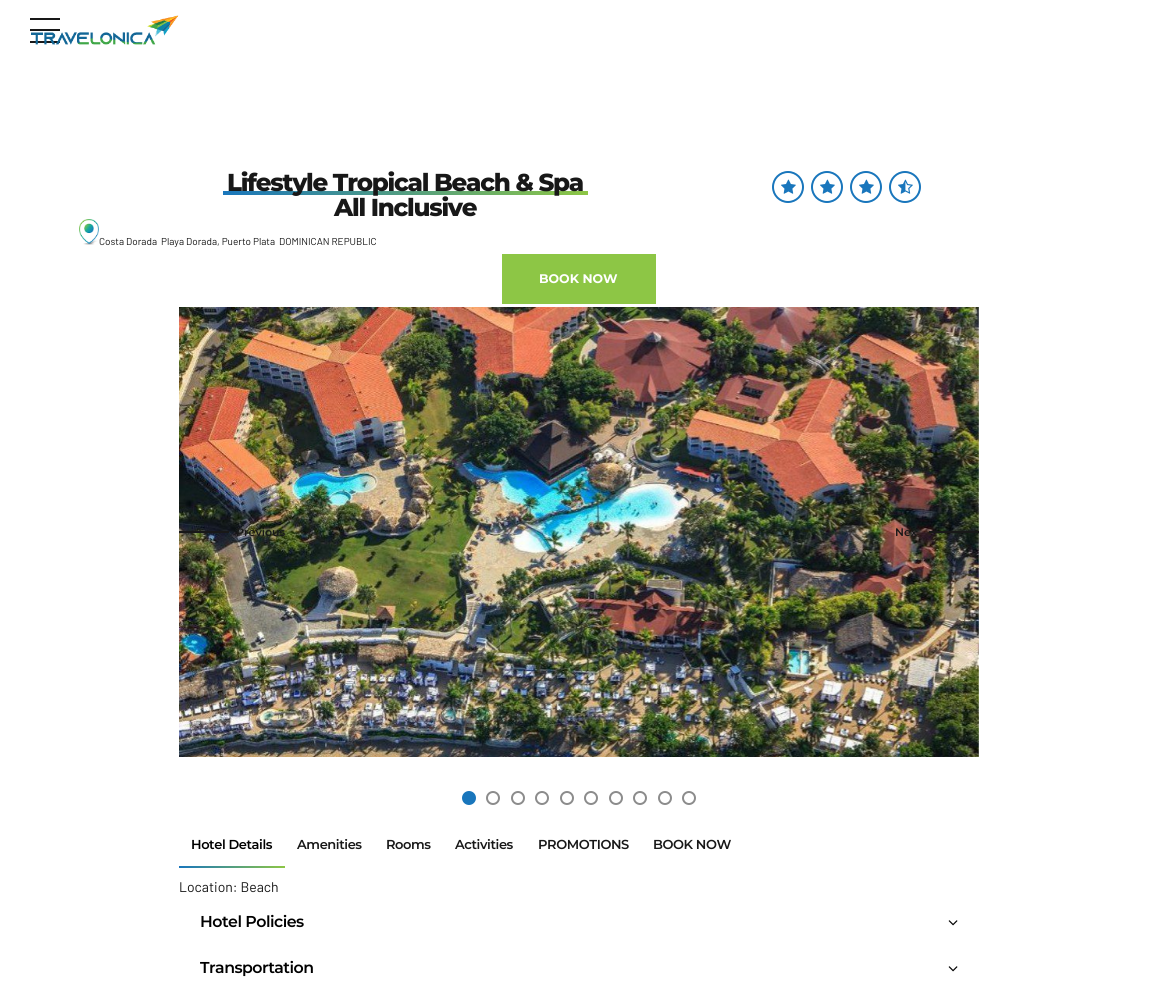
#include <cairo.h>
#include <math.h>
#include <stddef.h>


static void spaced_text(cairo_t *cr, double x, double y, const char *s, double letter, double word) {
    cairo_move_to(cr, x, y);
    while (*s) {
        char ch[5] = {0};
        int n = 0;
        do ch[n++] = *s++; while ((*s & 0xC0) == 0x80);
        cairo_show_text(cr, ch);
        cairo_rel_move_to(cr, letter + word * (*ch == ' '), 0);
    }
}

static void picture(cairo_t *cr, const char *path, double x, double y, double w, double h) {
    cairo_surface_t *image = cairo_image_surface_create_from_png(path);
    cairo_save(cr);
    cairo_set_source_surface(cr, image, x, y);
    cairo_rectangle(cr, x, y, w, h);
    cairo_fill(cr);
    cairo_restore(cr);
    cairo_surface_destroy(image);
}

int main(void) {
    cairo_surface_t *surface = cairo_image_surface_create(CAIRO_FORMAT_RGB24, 1158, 985);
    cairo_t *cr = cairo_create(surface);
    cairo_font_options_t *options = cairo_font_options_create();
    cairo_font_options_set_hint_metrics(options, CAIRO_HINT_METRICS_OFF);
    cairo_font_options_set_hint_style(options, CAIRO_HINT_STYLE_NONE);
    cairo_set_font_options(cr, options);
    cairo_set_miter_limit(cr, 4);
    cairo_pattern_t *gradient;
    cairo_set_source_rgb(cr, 1, 1, 1);
    cairo_paint(cr);
    cairo_set_source_rgb(cr, 0.094, 0.094, 0.094);
    cairo_rectangle(cr, 30, 18, 30, 2);
    cairo_fill(cr);
    cairo_rectangle(cr, 30, 29, 30, 2);
    cairo_fill(cr);
    cairo_rectangle(cr, 30, 41, 30, 2);
    cairo_fill(cr);
    picture(cr, "img1.png", 31, 15, 148, 30);
    gradient = cairo_pattern_create_linear(223, 193, 588, 193);
    cairo_pattern_add_color_stop_rgba(gradient, 0, 0.098, 0.463, 0.737, 1);
    cairo_pattern_add_color_stop_rgba(gradient, 1, 0.553, 0.776, 0.271, 1);
    cairo_set_source(cr, gradient);
    cairo_pattern_destroy(gradient);
    cairo_rectangle(cr, 223, 191, 365, 4);
    cairo_fill(cr);
    cairo_select_font_face(cr, "Montserrat ExtraBold", CAIRO_FONT_SLANT_NORMAL, CAIRO_FONT_WEIGHT_NORMAL);
    cairo_set_font_size(cr, 24.5);
    cairo_set_source_rgb(cr, 0.094, 0.094, 0.094);
    spaced_text(cr, 227, 191, "Lifestyle Tropical Beach & Spa", -1.25, 0);
    spaced_text(cr, 334, 216, "All Inclusive", -1.25, 0);
    picture(cr, "img2.png", 79, 219, 20, 26);
    cairo_select_font_face(cr, "Barlow", CAIRO_FONT_SLANT_NORMAL, CAIRO_FONT_WEIGHT_NORMAL);
    cairo_set_font_size(cr, 10);
    cairo_move_to(cr, 99, 245);
    cairo_show_text(cr, "Costa Dorada  Playa Dorada, Puerto Plata  DOMINICAN REPUBLIC");
    cairo_new_path(cr);
    cairo_arc(cr, 788, 187, 15, 0, 2 * M_PI);
    cairo_set_source_rgb(cr, 0.098, 0.463, 0.737);
    cairo_stroke(cr);
    picture(cr, "img3.png", 781, 179, 15, 15);
    cairo_arc(cr, 827, 187, 15, 0, 2 * M_PI);
    cairo_stroke(cr);
    picture(cr, "img3.png", 820, 179, 15, 15);
    cairo_arc(cr, 866, 187, 15, 0, 2 * M_PI);
    cairo_stroke(cr);
    picture(cr, "img3.png", 859, 179, 15, 15);
    cairo_arc(cr, 905, 187, 15, 0, 2 * M_PI);
    cairo_stroke(cr);
    picture(cr, "img4.png", 898, 179, 15, 15);
    cairo_set_source_rgb(cr, 0.553, 0.776, 0.271);
    cairo_rectangle(cr, 502, 254, 154, 50);
    cairo_fill(cr);
    cairo_select_font_face(cr, "Montserrat", CAIRO_FONT_SLANT_NORMAL, CAIRO_FONT_WEIGHT_BOLD);
    cairo_set_font_size(cr, 12.5);
    cairo_set_source_rgb(cr, 1, 1, 1);
    cairo_move_to(cr, 539, 283);
    cairo_show_text(cr, "BOOK NOW");
    picture(cr, "img5.png", 179, 307, 800, 450);
    cairo_set_source_rgb(cr, 0.094, 0.094, 0.094);
    cairo_rectangle(cr, 179, 531, 50, 2);
    cairo_fill(cr);
    cairo_select_font_face(cr, "Montserrat SemiBold", CAIRO_FONT_SLANT_NORMAL, CAIRO_FONT_WEIGHT_NORMAL);
    cairo_set_font_size(cr, 11);
    cairo_move_to(cr, 236, 536);
    cairo_show_text(cr, "Previous");
    cairo_move_to(cr, 895, 536);
    cairo_show_text(cr, "Nex");
    cairo_rectangle(cr, 929, 531, 50, 2);
    cairo_fill(cr);
    cairo_set_source_rgb(cr, 0.098, 0.463, 0.737);
    cairo_arc(cr, 469, 798, 7, 0, 2 * M_PI);
    cairo_fill(cr);
    cairo_arc(cr, 493, 798, 6, 0, 2 * M_PI);
    cairo_set_source_rgb(cr, 0.549, 0.549, 0.549);
    cairo_stroke(cr);
    cairo_arc(cr, 518, 798, 6, 0, 2 * M_PI);
    cairo_stroke(cr);
    cairo_arc(cr, 542, 798, 6, 0, 2 * M_PI);
    cairo_stroke(cr);
    cairo_arc(cr, 567, 798, 6, 0, 2 * M_PI);
    cairo_stroke(cr);
    cairo_arc(cr, 591, 798, 6, 0, 2 * M_PI);
    cairo_stroke(cr);
    cairo_arc(cr, 616, 798, 6, 0, 2 * M_PI);
    cairo_stroke(cr);
    cairo_arc(cr, 640, 798, 6, 0, 2 * M_PI);
    cairo_stroke(cr);
    cairo_arc(cr, 665, 798, 6, 0, 2 * M_PI);
    cairo_stroke(cr);
    cairo_arc(cr, 689, 798, 6, 0, 2 * M_PI);
    cairo_stroke(cr);
    cairo_set_font_size(cr, 13);
    cairo_set_source_rgb(cr, 0, 0, 0);
    spaced_text(cr, 191, 849, "Hotel Details", -0.4, 0);
    gradient = cairo_pattern_create_linear(179, 867, 285, 867);
    cairo_pattern_add_color_stop_rgba(gradient, 0, 0.098, 0.463, 0.737, 1);
    cairo_pattern_add_color_stop_rgba(gradient, 1, 0.553, 0.776, 0.271, 1);
    cairo_set_source(cr, gradient);
    cairo_pattern_destroy(gradient);
    cairo_rectangle(cr, 179, 866, 106, 2);
    cairo_fill(cr);
    cairo_set_source_rgb(cr, 0.094, 0.094, 0.094);
    spaced_text(cr, 297, 849, "Amenities", -0.4, 0);
    spaced_text(cr, 386, 849, "Rooms", -0.4, 0);
    spaced_text(cr, 455, 849, "Activities", -0.4, 0);
    spaced_text(cr, 538, 849, "PROMOTIONS", -0.4, 0);
    spaced_text(cr, 653, 849, "BOOK NOW", -0.4, 0);
    cairo_select_font_face(cr, "Barlow", CAIRO_FONT_SLANT_NORMAL, CAIRO_FONT_WEIGHT_NORMAL);
    cairo_set_font_size(cr, 14);
    cairo_move_to(cr, 179, 892);
    cairo_show_text(cr, "Location: Beach");
    cairo_select_font_face(cr, "Montserrat SemiBold", CAIRO_FONT_SLANT_NORMAL, CAIRO_FONT_WEIGHT_NORMAL);
    cairo_set_font_size(cr, 15.75);
    cairo_set_source_rgb(cr, 0, 0, 0);
    spaced_text(cr, 200, 927, "Hotel Policies", -0.5, 0);
    picture(cr, "img6.png", 948, 920, 10, 6);
    spaced_text(cr, 200, 973, "Transportation", -0.5, 0);
    picture(cr, "img6.png", 948, 966, 10, 6);
    cairo_surface_write_to_png(surface, "page.png");
    cairo_font_options_destroy(options);
    cairo_destroy(cr);
    cairo_surface_destroy(surface);
    return 0;
}
